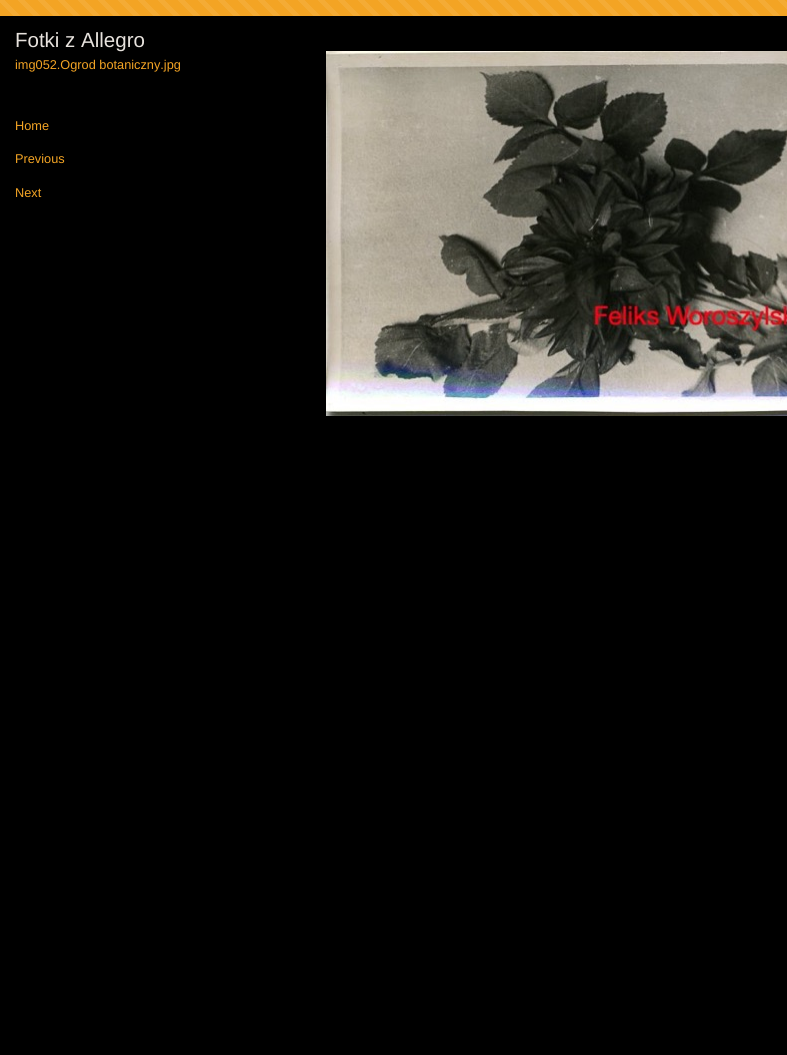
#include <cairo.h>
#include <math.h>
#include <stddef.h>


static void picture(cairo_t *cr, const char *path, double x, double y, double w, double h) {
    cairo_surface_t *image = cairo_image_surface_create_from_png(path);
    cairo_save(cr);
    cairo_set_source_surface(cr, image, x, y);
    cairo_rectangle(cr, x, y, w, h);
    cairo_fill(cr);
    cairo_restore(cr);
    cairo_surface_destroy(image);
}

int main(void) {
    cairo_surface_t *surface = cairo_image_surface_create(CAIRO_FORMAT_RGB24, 787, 1055);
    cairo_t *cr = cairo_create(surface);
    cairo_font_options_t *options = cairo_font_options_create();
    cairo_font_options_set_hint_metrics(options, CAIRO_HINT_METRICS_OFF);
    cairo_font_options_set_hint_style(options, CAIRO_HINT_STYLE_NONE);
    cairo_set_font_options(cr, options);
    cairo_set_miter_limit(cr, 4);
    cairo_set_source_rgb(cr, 0, 0, 0);
    cairo_paint(cr);
    cairo_set_source_rgb(cr, 0.953, 0.643, 0.141);
    cairo_rectangle(cr, 0, 0, 787, 16);
    cairo_fill(cr);
    picture(cr, "img1.png", 0, 0, 787, 16);
    cairo_select_font_face(cr, "Liberation Sans", CAIRO_FONT_SLANT_NORMAL, CAIRO_FONT_WEIGHT_NORMAL);
    cairo_set_font_size(cr, 20.5);
    cairo_set_source_rgb(cr, 0.906, 0.886, 0.867);
    cairo_move_to(cr, 15, 47);
    cairo_show_text(cr, "Fotki z Allegro");
    cairo_set_font_size(cr, 12.75);
    cairo_set_source_rgb(cr, 0.953, 0.643, 0.141);
    cairo_move_to(cr, 15, 69);
    cairo_show_text(cr, "img052.Ogrod botaniczny.jpg");
    cairo_move_to(cr, 15, 130);
    cairo_show_text(cr, "Home");
    cairo_move_to(cr, 15, 163);
    cairo_show_text(cr, "Previous");
    cairo_move_to(cr, 15, 197);
    cairo_show_text(cr, "Next");
    picture(cr, "img2.png", 326, 51, 461, 365);
    cairo_surface_write_to_png(surface, "page.png");
    cairo_font_options_destroy(options);
    cairo_destroy(cr);
    cairo_surface_destroy(surface);
    return 0;
}
